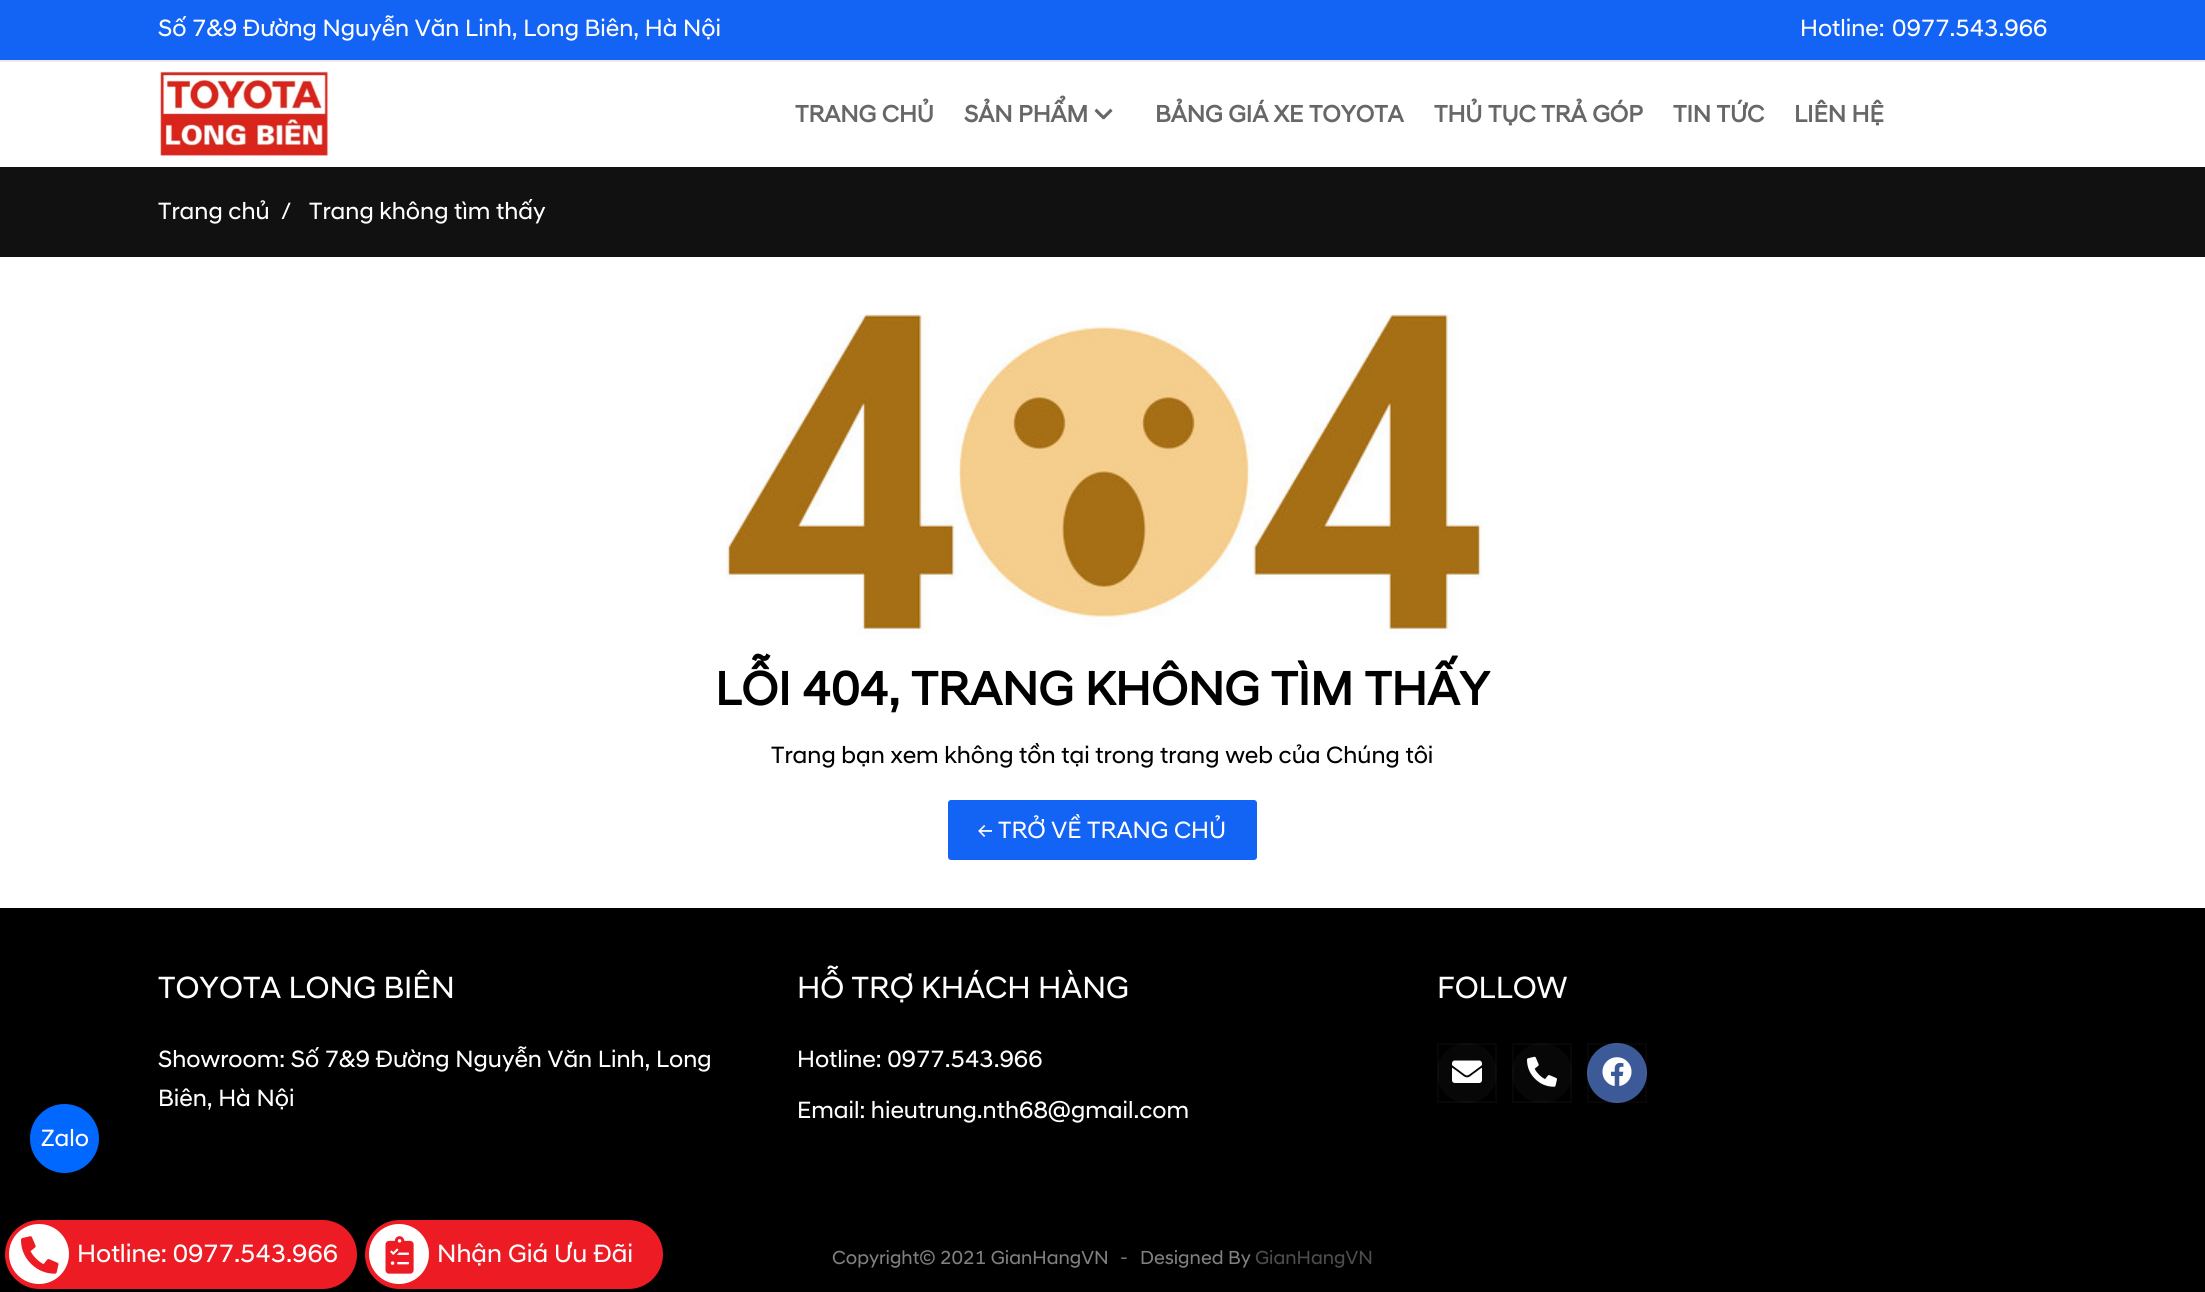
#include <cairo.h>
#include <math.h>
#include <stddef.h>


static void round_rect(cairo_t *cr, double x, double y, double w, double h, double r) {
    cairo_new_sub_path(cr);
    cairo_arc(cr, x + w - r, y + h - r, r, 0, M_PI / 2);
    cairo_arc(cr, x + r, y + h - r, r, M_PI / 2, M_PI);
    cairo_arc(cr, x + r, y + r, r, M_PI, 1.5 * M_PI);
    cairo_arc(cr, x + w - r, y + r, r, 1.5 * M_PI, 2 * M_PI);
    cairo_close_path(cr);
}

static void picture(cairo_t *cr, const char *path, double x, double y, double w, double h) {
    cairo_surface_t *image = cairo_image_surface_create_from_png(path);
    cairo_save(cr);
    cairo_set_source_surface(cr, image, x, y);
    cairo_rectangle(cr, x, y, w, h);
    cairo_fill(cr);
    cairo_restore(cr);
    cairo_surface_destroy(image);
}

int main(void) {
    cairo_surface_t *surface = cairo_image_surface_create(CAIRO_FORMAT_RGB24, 2205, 1292);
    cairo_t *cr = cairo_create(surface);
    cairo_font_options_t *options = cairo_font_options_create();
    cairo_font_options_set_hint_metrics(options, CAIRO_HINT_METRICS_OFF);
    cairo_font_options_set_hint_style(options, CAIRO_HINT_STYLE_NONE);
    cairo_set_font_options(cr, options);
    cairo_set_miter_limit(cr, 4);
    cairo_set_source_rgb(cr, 1, 1, 1);
    cairo_paint(cr);
    cairo_set_source_rgb(cr, 0.078, 0.392, 0.957);
    cairo_rectangle(cr, 0, 0, 2205, 60);
    cairo_fill(cr);
    cairo_select_font_face(cr, "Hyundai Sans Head", CAIRO_FONT_SLANT_NORMAL, CAIRO_FONT_WEIGHT_NORMAL);
    cairo_set_font_size(cr, 24);
    cairo_set_source_rgb(cr, 1, 1, 1);
    cairo_move_to(cr, 158, 36);
    cairo_show_text(cr, "Số 7&9 Đường Nguyễn Văn Linh, Long Biên, Hà Nội");
    cairo_move_to(cr, 1800, 36);
    cairo_show_text(cr, "Hotline:");
    cairo_move_to(cr, 1892, 36);
    cairo_show_text(cr, "0977.543.966");
    cairo_set_source_rgb(cr, 0.922, 0.922, 0.922);
    cairo_rectangle(cr, 0, 60, 2205, 2);
    cairo_fill(cr);
    picture(cr, "img1.png", 159, 71, 171, 85);
    cairo_select_font_face(cr, "Hyundai Sans Head", CAIRO_FONT_SLANT_NORMAL, CAIRO_FONT_WEIGHT_BOLD);
    cairo_set_source_rgb(cr, 0.404, 0.404, 0.404);
    cairo_move_to(cr, 795, 122);
    cairo_show_text(cr, "TRANG CHỦ");
    cairo_move_to(cr, 964, 122);
    cairo_show_text(cr, "SẢN PHẨM");
    cairo_new_path(cr);
    cairo_move_to(cr, 1094.5, 111);
    cairo_line_to(cr, 1096.5, 108.5);
    cairo_line_to(cr, 1105, 117);
    cairo_line_to(cr, 1103, 119.5);
    cairo_close_path(cr);
    cairo_fill(cr);
    cairo_new_path(cr);
    cairo_move_to(cr, 1110.5, 108.5);
    cairo_line_to(cr, 1112.5, 111);
    cairo_line_to(cr, 1104, 119.5);
    cairo_line_to(cr, 1102, 117);
    cairo_close_path(cr);
    cairo_fill(cr);
    cairo_move_to(cr, 1155, 122);
    cairo_show_text(cr, "BẢNG GIÁ XE TOYOTA");
    cairo_move_to(cr, 1434, 122);
    cairo_show_text(cr, "THỦ TỤC TRẢ GÓP");
    cairo_move_to(cr, 1673, 122);
    cairo_show_text(cr, "TIN TỨC");
    cairo_move_to(cr, 1794, 122);
    cairo_show_text(cr, "LIÊN HỆ");
    cairo_set_source_rgb(cr, 0.067, 0.067, 0.067);
    cairo_rectangle(cr, 0, 167, 2205, 90);
    cairo_fill(cr);
    cairo_select_font_face(cr, "Hyundai Sans Head", CAIRO_FONT_SLANT_NORMAL, CAIRO_FONT_WEIGHT_NORMAL);
    cairo_set_source_rgb(cr, 1, 1, 1);
    cairo_move_to(cr, 158, 219);
    cairo_show_text(cr, "Trang chủ");
    cairo_move_to(cr, 281, 219);
    cairo_show_text(cr, "/");
    cairo_move_to(cr, 309, 219);
    cairo_show_text(cr, "Trang không tìm thấy");
    picture(cr, "img2.png", 725, 314, 758, 321);
    cairo_select_font_face(cr, "Hyundai Sans Head", CAIRO_FONT_SLANT_NORMAL, CAIRO_FONT_WEIGHT_BOLD);
    cairo_set_font_size(cr, 48);
    cairo_set_source_rgb(cr, 0, 0, 0);
    cairo_move_to(cr, 715, 705);
    cairo_show_text(cr, "LỖI 404, TRANG KHÔNG TÌM THẤY");
    cairo_select_font_face(cr, "Hyundai Sans Head", CAIRO_FONT_SLANT_NORMAL, CAIRO_FONT_WEIGHT_NORMAL);
    cairo_set_font_size(cr, 24);
    cairo_move_to(cr, 771, 763);
    cairo_show_text(cr, "Trang bạn xem không tồn tại trong trang web của Chúng tôi");
    cairo_set_source_rgb(cr, 0.078, 0.392, 0.957);
    round_rect(cr, 948, 800, 309, 60, 3);
    cairo_fill(cr);
    cairo_set_source_rgb(cr, 1, 1, 1);
    cairo_move_to(cr, 978, 838);
    cairo_show_text(cr, "← TRỞ VỀ TRANG CHỦ");
    cairo_set_source_rgb(cr, 0, 0, 0);
    cairo_rectangle(cr, 0, 908, 2205, 384);
    cairo_fill(cr);
    cairo_set_source_rgb(cr, 0, 0.408, 1);
    cairo_arc(cr, 64.5, 1138.5, 34.5, 0, 2 * M_PI);
    cairo_fill(cr);
    cairo_set_source_rgb(cr, 1, 1, 1);
    cairo_move_to(cr, 41, 1146);
    cairo_show_text(cr, "Zalo");
    cairo_set_font_size(cr, 31.25);
    cairo_move_to(cr, 158, 998);
    cairo_show_text(cr, "TOYOTA LONG BIÊN");
    cairo_set_font_size(cr, 24);
    cairo_move_to(cr, 158, 1067);
    cairo_show_text(cr, "Showroom: Số 7&9 Đường Nguyễn Văn Linh, Long");
    cairo_move_to(cr, 158, 1106);
    cairo_show_text(cr, "Biên, Hà Nội");
    cairo_set_font_size(cr, 31.25);
    cairo_move_to(cr, 797, 998);
    cairo_show_text(cr, "HỖ TRỢ KHÁCH HÀNG");
    cairo_set_font_size(cr, 24);
    cairo_move_to(cr, 797, 1067);
    cairo_show_text(cr, "Hotline: 0977.543.966");
    cairo_move_to(cr, 797, 1118);
    cairo_show_text(cr, "Email: hieutrung.nth68@gmail.com");
    cairo_set_font_size(cr, 31.25);
    cairo_move_to(cr, 1437, 998);
    cairo_show_text(cr, "FOLLOW");
    cairo_set_source_rgb(cr, 0.031, 0.031, 0.031);
    cairo_new_path(cr);
    cairo_arc(cr, 1467, 1073, 30, 0, 2 * M_PI);
    cairo_fill(cr);
    picture(cr, "img3.png", 1452, 1060, 30, 23);
    cairo_rectangle(cr, 1438, 1044, 58, 58);
    cairo_set_source_rgba(cr, 1, 1, 1, 0.03);
    cairo_stroke(cr);
    cairo_set_source_rgb(cr, 0.031, 0.031, 0.031);
    cairo_arc(cr, 1542, 1073, 30, 0, 2 * M_PI);
    cairo_fill(cr);
    picture(cr, "img4.png", 1527, 1056, 30, 31);
    cairo_rectangle(cr, 1513, 1044, 58, 58);
    cairo_set_source_rgba(cr, 1, 1, 1, 0.03);
    cairo_stroke(cr);
    cairo_set_source_rgb(cr, 0.239, 0.353, 0.596);
    cairo_arc(cr, 1617, 1073, 30, 0, 2 * M_PI);
    cairo_fill(cr);
    picture(cr, "img5.png", 1602, 1057, 30, 29);
    cairo_rectangle(cr, 1588, 1044, 58, 58);
    cairo_set_source_rgba(cr, 1, 1, 1, 0.03);
    cairo_stroke(cr);
    cairo_set_font_size(cr, 19.25);
    cairo_set_source_rgb(cr, 0.502, 0.502, 0.502);
    cairo_move_to(cr, 832, 1264);
    cairo_show_text(cr, "Copyright© 2021 GianHangVN");
    cairo_move_to(cr, 1120, 1264);
    cairo_show_text(cr, "-");
    cairo_move_to(cr, 1140, 1264);
    cairo_show_text(cr, "Designed By");
    cairo_set_source_rgb(cr, 0.302, 0.302, 0.302);
    cairo_move_to(cr, 1255, 1264);
    cairo_show_text(cr, "GianHangVN");
    cairo_set_source_rgb(cr, 0.929, 0.11, 0.141);
    round_rect(cr, 5, 1220, 352, 69, 34.5);
    cairo_fill(cr);
    cairo_set_source_rgb(cr, 1, 1, 1);
    cairo_arc(cr, 39, 1254, 30, 0, 2 * M_PI);
    cairo_fill(cr);
    picture(cr, "img6.png", 21, 1236, 38, 38);
    cairo_set_font_size(cr, 25.5);
    cairo_move_to(cr, 77, 1262);
    cairo_show_text(cr, "Hotline: 0977.543.966");
    cairo_set_source_rgb(cr, 0.929, 0.11, 0.141);
    round_rect(cr, 365, 1220, 298, 69, 34.5);
    cairo_fill(cr);
    cairo_set_source_rgb(cr, 1, 1, 1);
    cairo_arc(cr, 399, 1254, 30, 0, 2 * M_PI);
    cairo_fill(cr);
    picture(cr, "img7.png", 385, 1236, 29, 38);
    cairo_move_to(cr, 437, 1262);
    cairo_show_text(cr, "Nhận Giá Ưu Đãi");
    cairo_surface_write_to_png(surface, "page.png");
    cairo_font_options_destroy(options);
    cairo_destroy(cr);
    cairo_surface_destroy(surface);
    return 0;
}
